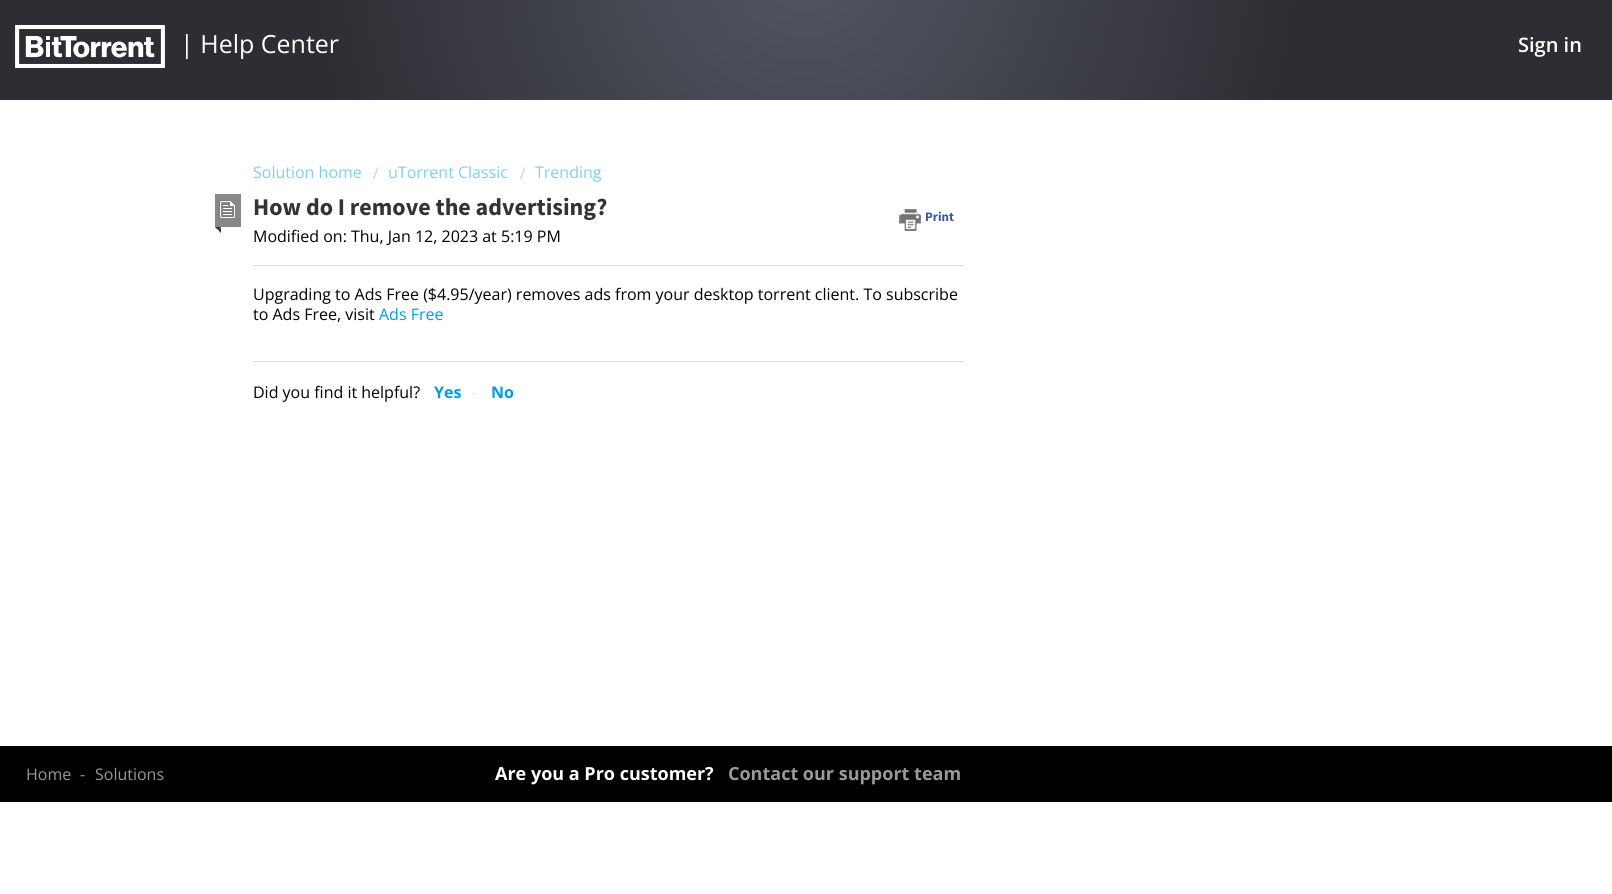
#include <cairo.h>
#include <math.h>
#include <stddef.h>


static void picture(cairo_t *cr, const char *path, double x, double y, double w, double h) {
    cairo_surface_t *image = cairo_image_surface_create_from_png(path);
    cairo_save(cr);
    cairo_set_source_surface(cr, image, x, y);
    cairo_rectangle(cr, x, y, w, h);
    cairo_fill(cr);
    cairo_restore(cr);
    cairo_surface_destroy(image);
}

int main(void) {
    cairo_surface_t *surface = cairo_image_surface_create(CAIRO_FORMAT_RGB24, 1612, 894);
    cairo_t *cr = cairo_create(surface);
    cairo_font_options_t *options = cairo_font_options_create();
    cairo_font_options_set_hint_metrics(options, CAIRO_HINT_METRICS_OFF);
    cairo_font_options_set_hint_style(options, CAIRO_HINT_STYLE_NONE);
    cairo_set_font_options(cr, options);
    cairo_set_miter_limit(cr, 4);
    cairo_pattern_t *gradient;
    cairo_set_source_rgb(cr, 1, 1, 1);
    cairo_paint(cr);
    gradient = cairo_pattern_create_radial(806, -45, 0, 806, -45, 829);
    cairo_pattern_add_color_stop_rgba(gradient, 0, 0.329, 0.341, 0.392, 1);
    cairo_pattern_add_color_stop_rgba(gradient, 0.6, 0.176, 0.18, 0.2, 1);
    cairo_set_source(cr, gradient);
    cairo_pattern_destroy(gradient);
    cairo_rectangle(cr, 0, 0, 1612, 100);
    cairo_fill(cr);
    picture(cr, "img1.png", 15, 25, 150, 43);
    cairo_select_font_face(cr, "Open Sans", CAIRO_FONT_SLANT_NORMAL, CAIRO_FONT_WEIGHT_NORMAL);
    cairo_set_font_size(cr, 25);
    cairo_set_source_rgb(cr, 1, 1, 1);
    cairo_move_to(cr, 180, 53);
    cairo_show_text(cr, "| Help Center");
    cairo_select_font_face(cr, "Open Sans SemiBold", CAIRO_FONT_SLANT_NORMAL, CAIRO_FONT_WEIGHT_NORMAL);
    cairo_set_font_size(cr, 20);
    cairo_move_to(cr, 1518, 52);
    cairo_show_text(cr, "Sign in");
    cairo_select_font_face(cr, "Open Sans", CAIRO_FONT_SLANT_NORMAL, CAIRO_FONT_WEIGHT_NORMAL);
    cairo_set_font_size(cr, 16);
    cairo_set_source_rgb(cr, 0.51, 0.808, 0.929);
    cairo_move_to(cr, 253, 178);
    cairo_show_text(cr, "Solution home");
    cairo_select_font_face(cr, "Open Sans Light", CAIRO_FONT_SLANT_NORMAL, CAIRO_FONT_WEIGHT_NORMAL);
    cairo_set_source_rgb(cr, 0.733, 0.733, 0.733);
    cairo_move_to(cr, 373, 179);
    cairo_show_text(cr, "/");
    cairo_select_font_face(cr, "Open Sans", CAIRO_FONT_SLANT_NORMAL, CAIRO_FONT_WEIGHT_NORMAL);
    cairo_set_source_rgb(cr, 0.51, 0.808, 0.929);
    cairo_move_to(cr, 388, 178);
    cairo_show_text(cr, "uTorrent Classic");
    cairo_select_font_face(cr, "Open Sans Light", CAIRO_FONT_SLANT_NORMAL, CAIRO_FONT_WEIGHT_NORMAL);
    cairo_set_source_rgb(cr, 0.733, 0.733, 0.733);
    cairo_move_to(cr, 520, 179);
    cairo_show_text(cr, "/");
    cairo_select_font_face(cr, "Open Sans", CAIRO_FONT_SLANT_NORMAL, CAIRO_FONT_WEIGHT_NORMAL);
    cairo_set_source_rgb(cr, 0.51, 0.808, 0.929);
    cairo_move_to(cr, 535, 178);
    cairo_show_text(cr, "Trending");
    cairo_set_source_rgb(cr, 0.533, 0.533, 0.533);
    cairo_rectangle(cr, 215, 194, 26, 33);
    cairo_fill(cr);
    picture(cr, "img2.png", 219, 200, 16, 18);
    cairo_set_source_rgb(cr, 0.2, 0.2, 0.2);
    cairo_new_path(cr);
    cairo_move_to(cr, 215, 227);
    cairo_line_to(cr, 221, 227);
    cairo_line_to(cr, 218, 230);
    cairo_close_path(cr);
    cairo_fill(cr);
    cairo_new_path(cr);
    cairo_move_to(cr, 221, 227);
    cairo_line_to(cr, 221, 233);
    cairo_line_to(cr, 218, 230);
    cairo_close_path(cr);
    cairo_fill(cr);
    cairo_select_font_face(cr, "Source Sans Pro", CAIRO_FONT_SLANT_NORMAL, CAIRO_FONT_WEIGHT_BOLD);
    cairo_set_font_size(cr, 24);
    cairo_move_to(cr, 253, 215);
    cairo_show_text(cr, "How do I remove the advertising?");
    picture(cr, "img3.png", 899, 209, 22, 22);
    cairo_set_font_size(cr, 13);
    cairo_set_source_rgb(cr, 0.231, 0.349, 0.596);
    cairo_move_to(cr, 925, 221);
    cairo_show_text(cr, "Print");
    cairo_select_font_face(cr, "Open Sans", CAIRO_FONT_SLANT_NORMAL, CAIRO_FONT_WEIGHT_NORMAL);
    cairo_set_font_size(cr, 16);
    cairo_set_source_rgb(cr, 0, 0, 0);
    cairo_move_to(cr, 253, 242);
    cairo_show_text(cr, "Modified on: Thu, Jan 12, 2023 at 5:19 PM");
    cairo_set_source_rgb(cr, 0.863, 0.863, 0.863);
    cairo_rectangle(cr, 253, 265, 711, 1);
    cairo_fill(cr);
    cairo_set_source_rgb(cr, 0, 0, 0);
    cairo_move_to(cr, 253, 300);
    cairo_show_text(cr, "Upgrading to Ads Free ($4.95/year) removes ads from your desktop torrent client. To subscribe");
    cairo_move_to(cr, 253, 320);
    cairo_show_text(cr, "to Ads Free, visit");
    cairo_set_source_rgb(cr, 0.016, 0.612, 0.859);
    cairo_move_to(cr, 379, 320);
    cairo_show_text(cr, "Ads Free");
    cairo_set_source_rgb(cr, 0.863, 0.863, 0.863);
    cairo_rectangle(cr, 253, 361, 711, 1);
    cairo_fill(cr);
    cairo_set_source_rgb(cr, 0, 0, 0);
    cairo_move_to(cr, 253, 398);
    cairo_show_text(cr, "Did you find it helpful?");
    cairo_select_font_face(cr, "Open Sans", CAIRO_FONT_SLANT_NORMAL, CAIRO_FONT_WEIGHT_BOLD);
    cairo_set_source_rgb(cr, 0.016, 0.612, 0.859);
    cairo_move_to(cr, 434, 398);
    cairo_show_text(cr, "Yes");
    cairo_select_font_face(cr, "Open Sans", CAIRO_FONT_SLANT_NORMAL, CAIRO_FONT_WEIGHT_NORMAL);
    cairo_set_source_rgb(cr, 0.898, 0.898, 0.898);
    cairo_move_to(cr, 472, 398);
    cairo_show_text(cr, "-");
    cairo_select_font_face(cr, "Open Sans", CAIRO_FONT_SLANT_NORMAL, CAIRO_FONT_WEIGHT_BOLD);
    cairo_set_source_rgb(cr, 0.016, 0.612, 0.859);
    cairo_move_to(cr, 491, 398);
    cairo_show_text(cr, "No");
    cairo_set_source_rgb(cr, 0, 0, 0);
    cairo_rectangle(cr, 0, 746, 1612, 56);
    cairo_fill(cr);
    cairo_select_font_face(cr, "Open Sans", CAIRO_FONT_SLANT_NORMAL, CAIRO_FONT_WEIGHT_NORMAL);
    cairo_set_source_rgb(cr, 0.6, 0.6, 0.6);
    cairo_move_to(cr, 26, 780);
    cairo_show_text(cr, "Home");
    cairo_move_to(cr, 80, 780);
    cairo_show_text(cr, "-");
    cairo_move_to(cr, 95, 780);
    cairo_show_text(cr, "Solutions");
    cairo_select_font_face(cr, "Open Sans", CAIRO_FONT_SLANT_NORMAL, CAIRO_FONT_WEIGHT_BOLD);
    cairo_set_font_size(cr, 18);
    cairo_set_source_rgb(cr, 1, 1, 1);
    cairo_move_to(cr, 495, 780);
    cairo_show_text(cr, "Are you a Pro customer?");
    cairo_set_source_rgb(cr, 0.6, 0.6, 0.6);
    cairo_move_to(cr, 728, 780);
    cairo_show_text(cr, "Contact our support team");
    cairo_surface_write_to_png(surface, "page.png");
    cairo_font_options_destroy(options);
    cairo_destroy(cr);
    cairo_surface_destroy(surface);
    return 0;
}
